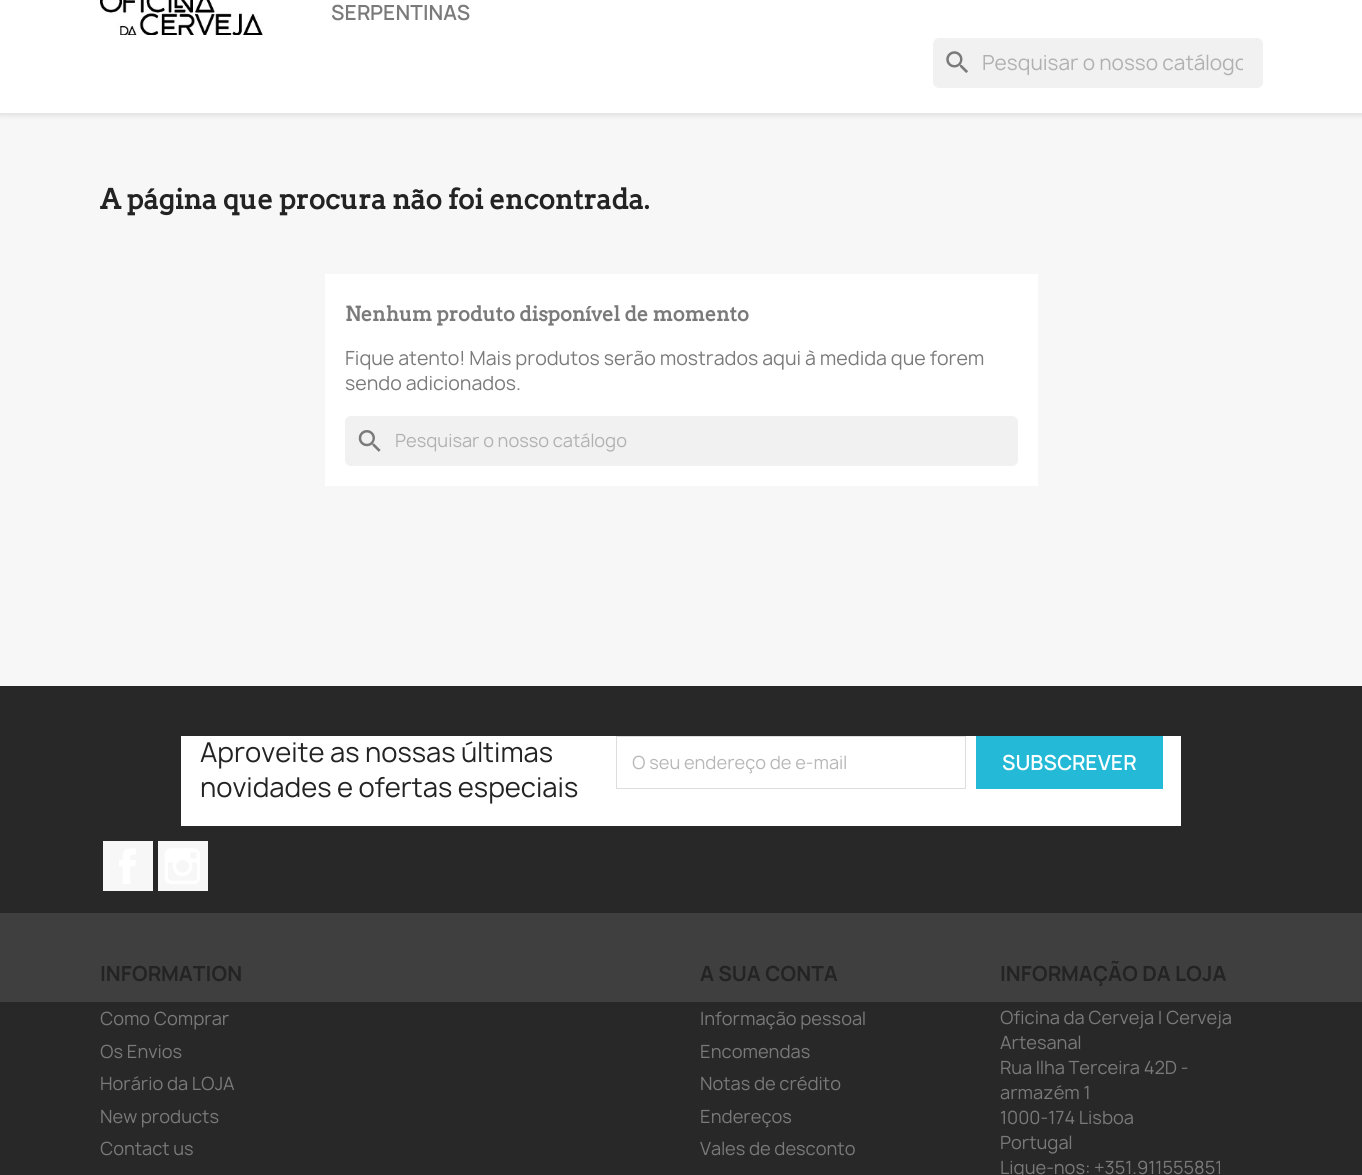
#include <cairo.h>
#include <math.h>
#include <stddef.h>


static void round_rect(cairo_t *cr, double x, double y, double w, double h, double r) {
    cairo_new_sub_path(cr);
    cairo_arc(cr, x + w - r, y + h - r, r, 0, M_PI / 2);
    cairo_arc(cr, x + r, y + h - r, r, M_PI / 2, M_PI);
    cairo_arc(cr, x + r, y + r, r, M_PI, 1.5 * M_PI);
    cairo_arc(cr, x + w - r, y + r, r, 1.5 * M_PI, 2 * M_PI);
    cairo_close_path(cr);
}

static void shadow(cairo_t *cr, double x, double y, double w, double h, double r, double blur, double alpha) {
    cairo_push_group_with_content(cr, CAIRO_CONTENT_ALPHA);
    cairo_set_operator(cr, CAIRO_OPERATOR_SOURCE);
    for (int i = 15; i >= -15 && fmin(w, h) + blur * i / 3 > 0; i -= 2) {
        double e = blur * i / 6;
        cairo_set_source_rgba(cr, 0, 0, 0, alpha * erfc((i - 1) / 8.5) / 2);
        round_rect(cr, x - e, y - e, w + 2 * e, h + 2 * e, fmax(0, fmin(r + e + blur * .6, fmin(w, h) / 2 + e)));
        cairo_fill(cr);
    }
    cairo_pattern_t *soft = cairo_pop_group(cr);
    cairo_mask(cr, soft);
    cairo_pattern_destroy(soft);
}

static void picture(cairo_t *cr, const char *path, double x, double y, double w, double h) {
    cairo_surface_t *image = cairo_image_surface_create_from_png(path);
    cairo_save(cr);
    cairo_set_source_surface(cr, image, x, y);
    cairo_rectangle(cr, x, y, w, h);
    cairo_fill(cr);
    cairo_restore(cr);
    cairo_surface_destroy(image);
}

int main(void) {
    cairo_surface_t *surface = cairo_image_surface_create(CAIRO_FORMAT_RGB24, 1362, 1175);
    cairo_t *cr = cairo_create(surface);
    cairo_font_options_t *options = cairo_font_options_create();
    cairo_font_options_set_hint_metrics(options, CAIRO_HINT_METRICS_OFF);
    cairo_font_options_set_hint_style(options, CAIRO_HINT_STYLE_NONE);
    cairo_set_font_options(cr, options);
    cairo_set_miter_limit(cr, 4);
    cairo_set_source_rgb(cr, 0.157, 0.157, 0.157);
    cairo_paint(cr);
    cairo_set_source_rgb(cr, 0.965, 0.965, 0.965);
    cairo_rectangle(cr, 0, 113, 1362, 573);
    cairo_fill(cr);
    cairo_set_source_rgb(cr, 0, 0, 0);
    shadow(cr, 0, -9, 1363, 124, 0, 3, 0.11);
    cairo_set_source_rgb(cr, 1, 1, 1);
    cairo_rectangle(cr, 0, 0, 1362, 113);
    cairo_fill(cr);
    picture(cr, "img1.png", 100, 0, 163, 35);
    cairo_select_font_face(cr, "Manrope SemiBold", CAIRO_FONT_SLANT_NORMAL, CAIRO_FONT_WEIGHT_NORMAL);
    cairo_set_font_size(cr, 20);
    cairo_set_source_rgb(cr, 0.478, 0.478, 0.478);
    cairo_move_to(cr, 331, 20);
    cairo_show_text(cr, "SERPENTINAS");
    cairo_set_source_rgb(cr, 0.945, 0.945, 0.945);
    round_rect(cr, 933, 38, 330, 50, 6);
    cairo_fill(cr);
    picture(cr, "img2.png", 946, 51, 22, 22);
    cairo_save(cr);
    cairo_rectangle(cr, 983, 46, 260, 34);
    cairo_clip(cr);
    cairo_select_font_face(cr, "Manrope", CAIRO_FONT_SLANT_NORMAL, CAIRO_FONT_WEIGHT_NORMAL);
    cairo_set_source_rgb(cr, 0.694, 0.694, 0.694);
    cairo_move_to(cr, 982, 70);
    cairo_show_text(cr, "Pesquisar o nosso catálogo");
    cairo_restore(cr);
    cairo_select_font_face(cr, "Arvo", CAIRO_FONT_SLANT_NORMAL, CAIRO_FONT_WEIGHT_BOLD);
    cairo_set_font_size(cr, 27.5);
    cairo_set_source_rgb(cr, 0.137, 0.137, 0.137);
    cairo_move_to(cr, 100, 209);
    cairo_show_text(cr, "A página que procura não foi encontrada.");
    cairo_set_source_rgb(cr, 1, 1, 1);
    cairo_rectangle(cr, 325, 274, 713, 212);
    cairo_fill(cr);
    cairo_set_font_size(cr, 20);
    cairo_set_source_rgb(cr, 0.478, 0.478, 0.478);
    cairo_move_to(cr, 345, 321);
    cairo_show_text(cr, "Nenhum produto disponível de momento");
    cairo_select_font_face(cr, "Manrope", CAIRO_FONT_SLANT_NORMAL, CAIRO_FONT_WEIGHT_NORMAL);
    cairo_set_font_size(cr, 18.75);
    cairo_move_to(cr, 345, 365);
    cairo_show_text(cr, "Fique atento! Mais produtos serão mostrados aqui à medida que forem");
    cairo_move_to(cr, 345, 390);
    cairo_show_text(cr, "sendo adicionados.");
    cairo_set_source_rgb(cr, 0.945, 0.945, 0.945);
    round_rect(cr, 345, 416, 673, 50, 6);
    cairo_fill(cr);
    picture(cr, "img3.png", 358, 430, 23, 22);
    cairo_set_font_size(cr, 17.5);
    cairo_set_source_rgb(cr, 0.694, 0.694, 0.694);
    cairo_move_to(cr, 395, 447);
    cairo_show_text(cr, "Pesquisar o nosso catálogo");
    cairo_set_source_rgb(cr, 1, 1, 1);
    cairo_rectangle(cr, 181, 736, 1000, 90);
    cairo_fill(cr);
    cairo_set_font_size(cr, 26.25);
    cairo_set_source_rgb(cr, 0.137, 0.137, 0.137);
    cairo_move_to(cr, 200, 762);
    cairo_show_text(cr, "Aproveite as nossas últimas");
    cairo_move_to(cr, 200, 797);
    cairo_show_text(cr, "novidades e ofertas especiais");
    cairo_rectangle(cr, 616.5, 736.5, 349, 52);
    cairo_set_source_rgb(cr, 0.867, 0.867, 0.867);
    cairo_set_line_width(cr, 1);
    cairo_stroke(cr);
    cairo_set_font_size(cr, 17.5);
    cairo_set_source_rgb(cr, 0.718, 0.718, 0.718);
    cairo_move_to(cr, 632, 769);
    cairo_show_text(cr, "O seu endereço de e-mail");
    cairo_set_source_rgb(cr, 0.141, 0.725, 0.843);
    cairo_rectangle(cr, 976, 736, 187, 53);
    cairo_fill(cr);
    cairo_select_font_face(cr, "Manrope SemiBold", CAIRO_FONT_SLANT_NORMAL, CAIRO_FONT_WEIGHT_NORMAL);
    cairo_set_font_size(cr, 20);
    cairo_set_source_rgb(cr, 1, 1, 1);
    cairo_move_to(cr, 1002, 770);
    cairo_show_text(cr, "SUBSCREVER");
    cairo_set_source_rgb(cr, 0.965, 0.965, 0.965);
    cairo_rectangle(cr, 103, 841, 50, 50);
    cairo_fill(cr);
    picture(cr, "img4.png", 119, 848, 17, 36);
    cairo_rectangle(cr, 158, 841, 50, 50);
    cairo_fill(cr);
    picture(cr, "img5.png", 164, 848, 36, 36);
    cairo_set_source_rgb(cr, 0.247, 0.247, 0.247);
    cairo_rectangle(cr, 0, 913, 1362, 89);
    cairo_fill(cr);
    cairo_select_font_face(cr, "Manrope", CAIRO_FONT_SLANT_NORMAL, CAIRO_FONT_WEIGHT_BOLD);
    cairo_set_source_rgb(cr, 0.137, 0.137, 0.137);
    cairo_move_to(cr, 100, 981);
    cairo_show_text(cr, "INFORMATION");
    cairo_select_font_face(cr, "Manrope", CAIRO_FONT_SLANT_NORMAL, CAIRO_FONT_WEIGHT_NORMAL);
    cairo_set_font_size(cr, 17.5);
    cairo_set_source_rgb(cr, 0.478, 0.478, 0.478);
    cairo_move_to(cr, 100, 1025);
    cairo_show_text(cr, "Como Comprar");
    cairo_move_to(cr, 100, 1058);
    cairo_show_text(cr, "Os Envios");
    cairo_move_to(cr, 100, 1090);
    cairo_show_text(cr, "Horário da LOJA");
    cairo_move_to(cr, 100, 1123);
    cairo_show_text(cr, "New products");
    cairo_move_to(cr, 100, 1155);
    cairo_show_text(cr, "Contact us");
    cairo_select_font_face(cr, "Manrope", CAIRO_FONT_SLANT_NORMAL, CAIRO_FONT_WEIGHT_BOLD);
    cairo_set_font_size(cr, 20);
    cairo_set_source_rgb(cr, 0.137, 0.137, 0.137);
    cairo_move_to(cr, 700, 981);
    cairo_show_text(cr, "A SUA CONTA");
    cairo_select_font_face(cr, "Manrope", CAIRO_FONT_SLANT_NORMAL, CAIRO_FONT_WEIGHT_NORMAL);
    cairo_set_font_size(cr, 17.5);
    cairo_set_source_rgb(cr, 0.478, 0.478, 0.478);
    cairo_move_to(cr, 700, 1025);
    cairo_show_text(cr, "Informação pessoal");
    cairo_move_to(cr, 700, 1058);
    cairo_show_text(cr, "Encomendas");
    cairo_move_to(cr, 700, 1090);
    cairo_show_text(cr, "Notas de crédito");
    cairo_move_to(cr, 700, 1123);
    cairo_show_text(cr, "Endereços");
    cairo_move_to(cr, 700, 1155);
    cairo_show_text(cr, "Vales de desconto");
    cairo_select_font_face(cr, "Manrope", CAIRO_FONT_SLANT_NORMAL, CAIRO_FONT_WEIGHT_BOLD);
    cairo_set_font_size(cr, 20);
    cairo_set_source_rgb(cr, 0.137, 0.137, 0.137);
    cairo_move_to(cr, 1000, 981);
    cairo_show_text(cr, "INFORMAÇÃO DA LOJA");
    cairo_select_font_face(cr, "Manrope", CAIRO_FONT_SLANT_NORMAL, CAIRO_FONT_WEIGHT_NORMAL);
    cairo_set_font_size(cr, 17.5);
    cairo_set_source_rgb(cr, 0.478, 0.478, 0.478);
    cairo_move_to(cr, 1000, 1024);
    cairo_show_text(cr, "Oficina da Cerveja | Cerveja");
    cairo_move_to(cr, 1000, 1049);
    cairo_show_text(cr, "Artesanal");
    cairo_move_to(cr, 1000, 1074);
    cairo_show_text(cr, "Rua Ilha Terceira 42D -");
    cairo_move_to(cr, 1000, 1099);
    cairo_show_text(cr, "armazém 1");
    cairo_move_to(cr, 1000, 1124);
    cairo_show_text(cr, "1000-174 Lisboa");
    cairo_move_to(cr, 1000, 1149);
    cairo_show_text(cr, "Portugal");
    cairo_move_to(cr, 1000, 1174);
    cairo_show_text(cr, "Ligue-nos: +351.911555851");
    cairo_surface_write_to_png(surface, "page.png");
    cairo_font_options_destroy(options);
    cairo_destroy(cr);
    cairo_surface_destroy(surface);
    return 0;
}
